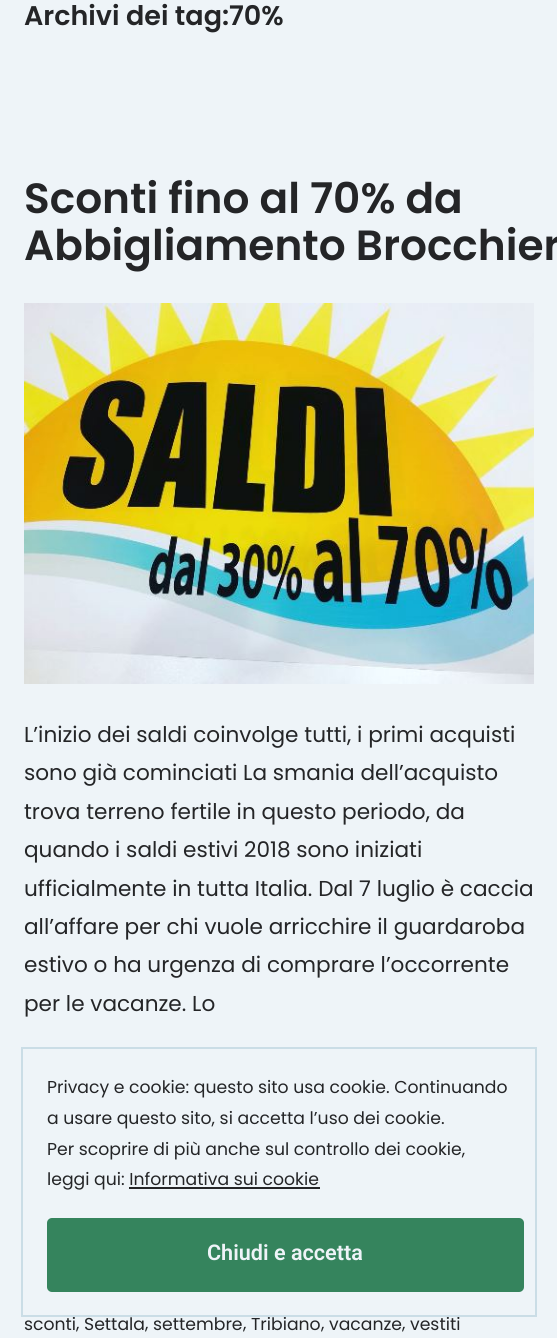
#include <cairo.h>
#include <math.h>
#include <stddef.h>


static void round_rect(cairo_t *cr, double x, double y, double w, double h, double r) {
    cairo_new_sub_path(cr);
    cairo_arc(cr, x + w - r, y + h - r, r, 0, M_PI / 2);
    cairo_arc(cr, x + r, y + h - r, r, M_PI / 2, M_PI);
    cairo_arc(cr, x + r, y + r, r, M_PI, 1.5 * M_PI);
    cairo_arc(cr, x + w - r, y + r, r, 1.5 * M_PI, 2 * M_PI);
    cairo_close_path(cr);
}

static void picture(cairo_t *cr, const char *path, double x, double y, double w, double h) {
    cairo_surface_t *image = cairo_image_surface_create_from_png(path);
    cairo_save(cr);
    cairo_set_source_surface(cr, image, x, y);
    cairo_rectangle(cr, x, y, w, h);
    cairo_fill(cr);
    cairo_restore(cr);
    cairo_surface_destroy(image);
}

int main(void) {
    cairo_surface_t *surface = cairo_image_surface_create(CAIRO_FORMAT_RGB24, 557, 1338);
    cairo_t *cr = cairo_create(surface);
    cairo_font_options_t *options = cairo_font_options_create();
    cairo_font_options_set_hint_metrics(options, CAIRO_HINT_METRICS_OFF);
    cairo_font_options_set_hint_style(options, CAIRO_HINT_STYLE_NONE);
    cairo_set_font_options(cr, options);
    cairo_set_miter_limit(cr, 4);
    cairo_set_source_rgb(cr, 0.933, 0.957, 0.969);
    cairo_paint(cr);
    cairo_select_font_face(cr, "Poppins SemiBold", CAIRO_FONT_SLANT_NORMAL, CAIRO_FONT_WEIGHT_NORMAL);
    cairo_set_font_size(cr, 27);
    cairo_set_source_rgb(cr, 0.141, 0.145, 0.153);
    cairo_move_to(cr, 24, 25);
    cairo_show_text(cr, "Archivi dei tag:70%");
    cairo_set_font_size(cr, 42.25);
    cairo_move_to(cr, 24, 213);
    cairo_show_text(cr, "Sconti fino al 70% da");
    cairo_move_to(cr, 24, 260);
    cairo_show_text(cr, "Abbigliamento Brocchier");
    picture(cr, "img1.png", 24, 303, 510, 381);
    cairo_select_font_face(cr, "Poppins", CAIRO_FONT_SLANT_NORMAL, CAIRO_FONT_WEIGHT_NORMAL);
    cairo_set_font_size(cr, 21.6);
    cairo_move_to(cr, 24, 742);
    cairo_show_text(cr, "L’inizio dei saldi coinvolge tutti, i primi acquisti");
    cairo_move_to(cr, 24, 780);
    cairo_show_text(cr, "sono già cominciati La smania dell’acquisto");
    cairo_move_to(cr, 24, 819);
    cairo_show_text(cr, "trova terreno fertile in questo periodo, da");
    cairo_move_to(cr, 24, 857);
    cairo_show_text(cr, "quando i saldi estivi 2018 sono iniziati");
    cairo_move_to(cr, 24, 896);
    cairo_show_text(cr, "ufficialmente in tutta Italia. Dal 7 luglio è caccia");
    cairo_move_to(cr, 24, 934);
    cairo_show_text(cr, "all’affare per chi vuole arricchire il guardaroba");
    cairo_move_to(cr, 24, 972);
    cairo_show_text(cr, "estivo o ha urgenza di comprare l’occorrente");
    cairo_move_to(cr, 24, 1011);
    cairo_show_text(cr, "per le vacanze. Lo");
    cairo_set_font_size(cr, 17.25);
    cairo_move_to(cr, 24, 1330);
    cairo_show_text(cr, "sconti");
    cairo_move_to(cr, 76, 1329);
    cairo_show_text(cr, ",");
    cairo_move_to(cr, 84, 1330);
    cairo_show_text(cr, "Settala");
    cairo_move_to(cr, 145, 1329);
    cairo_show_text(cr, ",");
    cairo_move_to(cr, 153, 1330);
    cairo_show_text(cr, "settembre");
    cairo_move_to(cr, 243, 1329);
    cairo_show_text(cr, ",");
    cairo_move_to(cr, 251, 1330);
    cairo_show_text(cr, "Tribiano");
    cairo_move_to(cr, 321, 1329);
    cairo_show_text(cr, ",");
    cairo_move_to(cr, 329, 1330);
    cairo_show_text(cr, "vacanze");
    cairo_move_to(cr, 402, 1329);
    cairo_show_text(cr, ",");
    cairo_move_to(cr, 410, 1330);
    cairo_show_text(cr, "vestiti");
    cairo_rectangle(cr, 22, 1048, 514, 268);
    cairo_set_source_rgb(cr, 0.792, 0.867, 0.902);
    cairo_stroke(cr);
    cairo_set_source_rgb(cr, 0.141, 0.145, 0.153);
    cairo_move_to(cr, 47, 1093);
    cairo_show_text(cr, "Privacy e cookie: questo sito usa cookie. Continuando");
    cairo_move_to(cr, 47, 1124);
    cairo_show_text(cr, "a usare questo sito, si accetta l’uso dei cookie.");
    cairo_move_to(cr, 47, 1155);
    cairo_show_text(cr, "Per scoprire di più anche sul controllo dei cookie,");
    cairo_move_to(cr, 47, 1185);
    cairo_show_text(cr, "leggi qui: Informativa sui cookie");
    cairo_rectangle(cr, 129, 1187, 191, 2);
    cairo_fill(cr);
    cairo_set_source_rgb(cr, 0.208, 0.518, 0.365);
    round_rect(cr, 47, 1218, 477, 74, 5);
    cairo_fill(cr);
    cairo_select_font_face(cr, "Roboto SemiBold", CAIRO_FONT_SLANT_NORMAL, CAIRO_FONT_WEIGHT_NORMAL);
    cairo_set_font_size(cr, 21.6);
    cairo_set_source_rgb(cr, 0.933, 0.957, 0.969);
    cairo_move_to(cr, 207, 1260);
    cairo_show_text(cr, "Chiudi e accetta");
    cairo_surface_write_to_png(surface, "page.png");
    cairo_font_options_destroy(options);
    cairo_destroy(cr);
    cairo_surface_destroy(surface);
    return 0;
}
